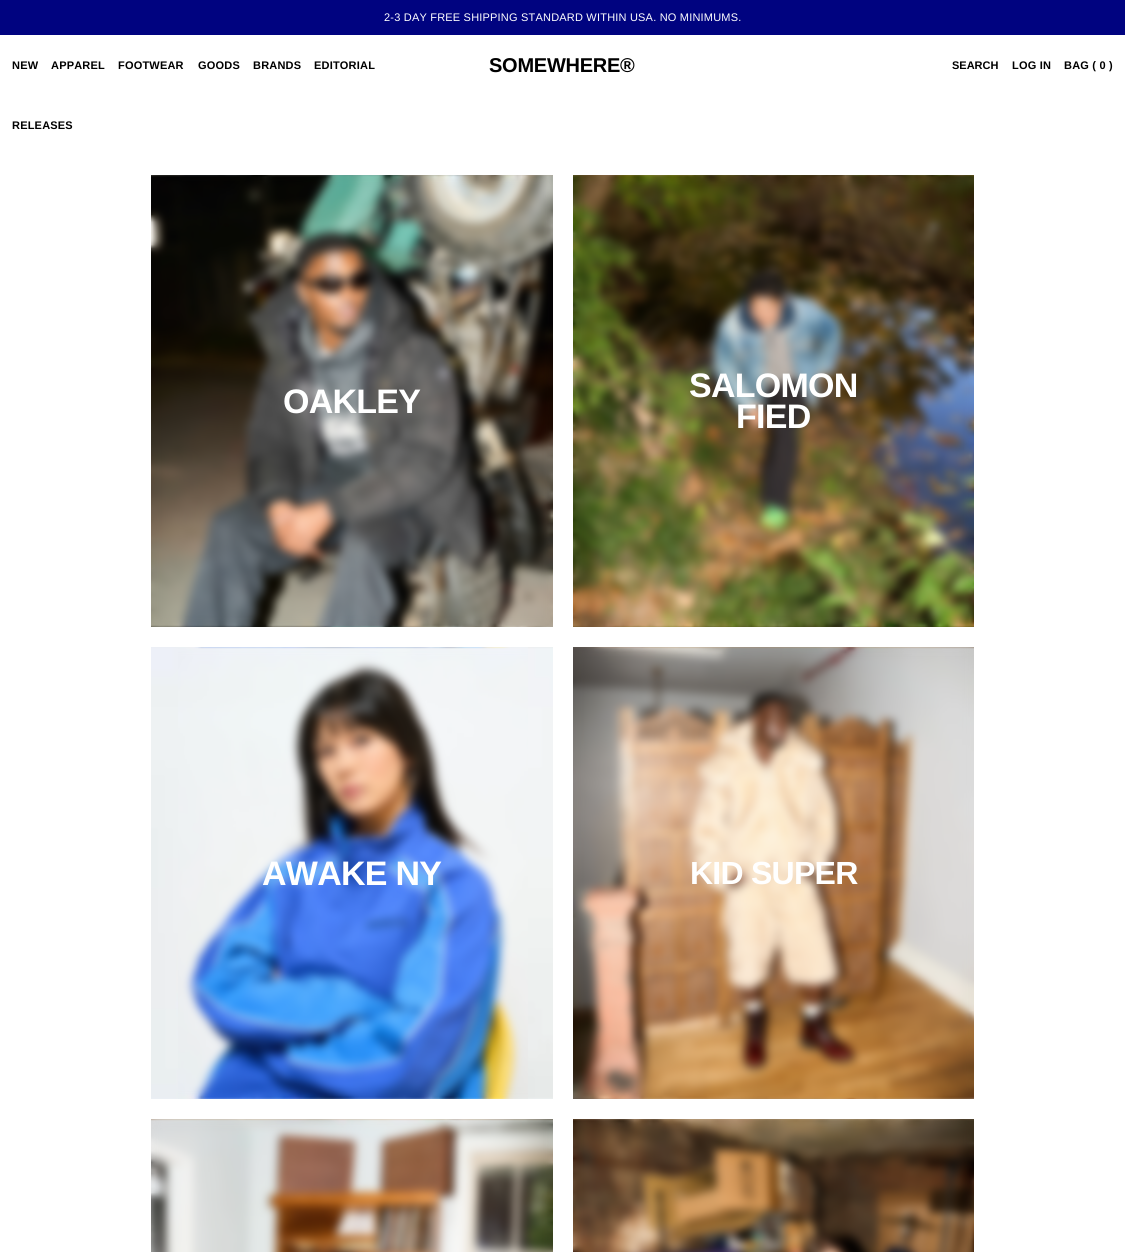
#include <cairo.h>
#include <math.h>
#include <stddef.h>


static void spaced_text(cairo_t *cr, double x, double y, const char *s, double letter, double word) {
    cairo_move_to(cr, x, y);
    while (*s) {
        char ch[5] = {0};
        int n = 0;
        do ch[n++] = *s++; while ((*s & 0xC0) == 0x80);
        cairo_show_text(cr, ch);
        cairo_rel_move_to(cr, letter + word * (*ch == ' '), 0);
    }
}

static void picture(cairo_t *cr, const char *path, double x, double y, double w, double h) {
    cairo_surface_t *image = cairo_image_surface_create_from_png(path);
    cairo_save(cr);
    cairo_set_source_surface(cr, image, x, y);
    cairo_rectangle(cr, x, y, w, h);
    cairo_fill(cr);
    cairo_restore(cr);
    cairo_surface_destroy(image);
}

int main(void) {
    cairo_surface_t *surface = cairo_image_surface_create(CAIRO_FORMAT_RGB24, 1125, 1252);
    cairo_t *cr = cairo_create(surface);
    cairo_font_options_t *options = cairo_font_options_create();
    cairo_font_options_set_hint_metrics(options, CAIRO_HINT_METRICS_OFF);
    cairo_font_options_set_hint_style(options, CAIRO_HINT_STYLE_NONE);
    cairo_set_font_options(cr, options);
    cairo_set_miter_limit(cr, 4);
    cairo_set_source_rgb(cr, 1, 1, 1);
    cairo_paint(cr);
    cairo_set_source_rgb(cr, 0, 0.012, 0.502);
    cairo_rectangle(cr, 0, 0, 1125, 35);
    cairo_fill(cr);
    cairo_select_font_face(cr, "Liberation Sans", CAIRO_FONT_SLANT_NORMAL, CAIRO_FONT_WEIGHT_NORMAL);
    cairo_set_font_size(cr, 11);
    cairo_set_source_rgb(cr, 1, 1, 1);
    spaced_text(cr, 384, 21, "2-3 DAY FREE SHIPPING STANDARD WITHIN USA. NO MINIMUMS.", 0.2, 0);
    cairo_select_font_face(cr, "Liberation Sans", CAIRO_FONT_SLANT_NORMAL, CAIRO_FONT_WEIGHT_BOLD);
    cairo_set_source_rgb(cr, 0, 0, 0);
    spaced_text(cr, 12, 69, "NEW", 0.2, 0);
    spaced_text(cr, 51, 69, "APPAREL", 0.2, 0);
    spaced_text(cr, 118, 69, "FOOTWEAR", 0.2, 0);
    spaced_text(cr, 198, 69, "GOODS", 0.2, 0);
    spaced_text(cr, 253, 69, "BRANDS", 0.2, 0);
    spaced_text(cr, 314, 69, "EDITORIAL", 0.2, 0);
    spaced_text(cr, 12, 129, "RELEASES", 0.2, 0);
    cairo_set_font_size(cr, 20);
    spaced_text(cr, 489, 72, "SOMEWHERE®", -0.25, 0);
    cairo_set_font_size(cr, 11);
    cairo_move_to(cr, 952, 69);
    cairo_show_text(cr, "SEARCH");
    spaced_text(cr, 1012, 69, "LOG IN", 0.2, 0);
    spaced_text(cr, 1064, 69, "BAG ( 0 )", 0.2, 0);
    picture(cr, "img1.png", 151, 175, 402, 452);
    picture(cr, "img2.png", 151, 175, 402, 452);
    cairo_set_font_size(cr, 34);
    cairo_set_source_rgb(cr, 1, 1, 1);
    spaced_text(cr, 283, 413, "OAKLEY", -0.75, 0);
    picture(cr, "img3.png", 573, 175, 401, 452);
    picture(cr, "img4.png", 573, 175, 401, 452);
    spaced_text(cr, 689, 397, "SALOMON", -0.75, 0);
    spaced_text(cr, 736, 428, "FIED", -0.75, 0);
    picture(cr, "img5.png", 151, 647, 402, 452);
    picture(cr, "img6.png", 178, 647, 350, 452);
    spaced_text(cr, 262, 885, "AWAKE NY", -0.75, 0);
    picture(cr, "img7.png", 573, 647, 401, 452);
    picture(cr, "img8.png", 573, 647, 401, 452);
    cairo_set_font_size(cr, 32);
    spaced_text(cr, 690, 884, "KID SUPER", -0.75, 0);
    picture(cr, "img9.png", 151, 1119, 402, 133);
    picture(cr, "img10.png", 151, 1119, 402, 133);
    picture(cr, "img11.png", 573, 1119, 401, 133);
    picture(cr, "img12.png", 573, 1119, 401, 133);
    cairo_surface_write_to_png(surface, "page.png");
    cairo_font_options_destroy(options);
    cairo_destroy(cr);
    cairo_surface_destroy(surface);
    return 0;
}
